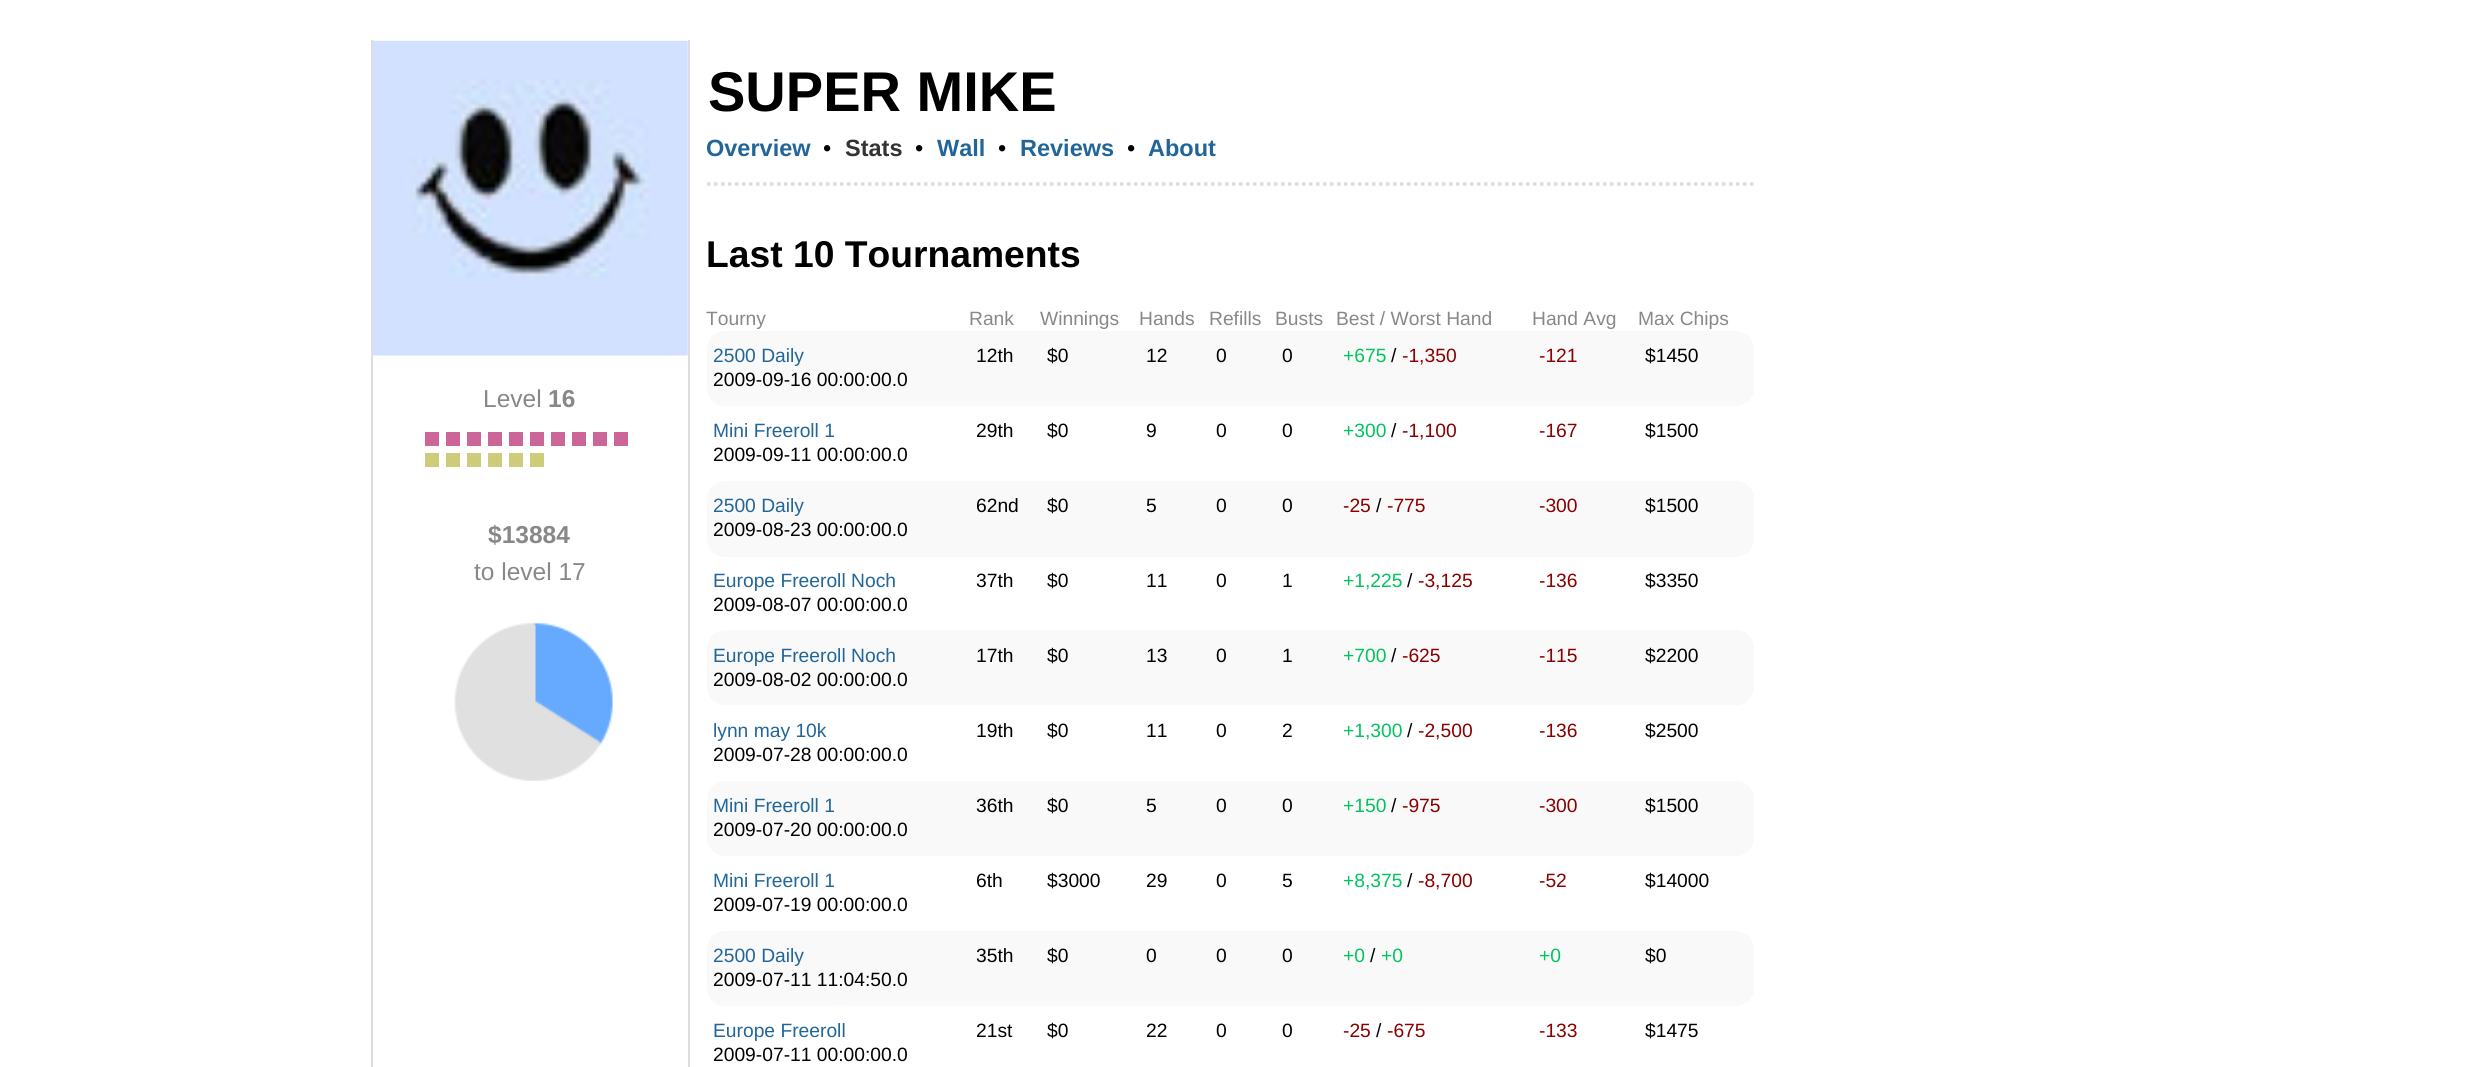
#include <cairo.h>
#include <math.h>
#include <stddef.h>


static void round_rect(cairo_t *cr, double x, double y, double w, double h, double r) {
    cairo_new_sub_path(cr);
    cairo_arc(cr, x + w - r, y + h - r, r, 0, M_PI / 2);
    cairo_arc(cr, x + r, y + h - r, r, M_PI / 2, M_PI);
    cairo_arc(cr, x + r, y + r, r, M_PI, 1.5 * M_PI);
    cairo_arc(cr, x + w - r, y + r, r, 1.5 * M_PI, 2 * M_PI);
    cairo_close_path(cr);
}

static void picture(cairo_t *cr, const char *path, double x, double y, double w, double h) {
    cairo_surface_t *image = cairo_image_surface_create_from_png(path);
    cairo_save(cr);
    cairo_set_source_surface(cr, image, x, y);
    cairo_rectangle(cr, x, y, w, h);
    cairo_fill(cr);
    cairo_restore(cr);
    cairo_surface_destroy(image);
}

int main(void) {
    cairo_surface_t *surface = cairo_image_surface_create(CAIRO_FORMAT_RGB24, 2489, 1067);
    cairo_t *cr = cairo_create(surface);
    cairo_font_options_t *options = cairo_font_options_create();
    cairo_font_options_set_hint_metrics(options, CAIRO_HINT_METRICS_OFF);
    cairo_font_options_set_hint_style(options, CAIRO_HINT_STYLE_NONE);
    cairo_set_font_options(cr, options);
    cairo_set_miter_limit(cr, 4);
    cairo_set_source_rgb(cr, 1, 1, 1);
    cairo_paint(cr);
    cairo_set_source_rgb(cr, 0.867, 0.867, 0.867);
    cairo_rectangle(cr, 688, 40, 2, 1027);
    cairo_fill(cr);
    cairo_rectangle(cr, 371, 40, 2, 1027);
    cairo_fill(cr);
    picture(cr, "img1.png", 372, 40, 316, 316);
    cairo_select_font_face(cr, "Liberation Sans", CAIRO_FONT_SLANT_NORMAL, CAIRO_FONT_WEIGHT_NORMAL);
    cairo_set_font_size(cr, 24.5);
    cairo_set_source_rgb(cr, 0.533, 0.533, 0.533);
    cairo_move_to(cr, 483, 407);
    cairo_show_text(cr, "Level");
    cairo_select_font_face(cr, "Liberation Sans", CAIRO_FONT_SLANT_NORMAL, CAIRO_FONT_WEIGHT_BOLD);
    cairo_move_to(cr, 548, 407);
    cairo_show_text(cr, "16");
    cairo_set_source_rgb(cr, 0.8, 0.4, 0.6);
    cairo_rectangle(cr, 425, 432, 14, 14);
    cairo_fill(cr);
    cairo_rectangle(cr, 446, 432, 14, 14);
    cairo_fill(cr);
    cairo_rectangle(cr, 467, 432, 14, 14);
    cairo_fill(cr);
    cairo_rectangle(cr, 488, 432, 14, 14);
    cairo_fill(cr);
    cairo_rectangle(cr, 509, 432, 14, 14);
    cairo_fill(cr);
    cairo_rectangle(cr, 530, 432, 14, 14);
    cairo_fill(cr);
    cairo_rectangle(cr, 551, 432, 14, 14);
    cairo_fill(cr);
    cairo_rectangle(cr, 572, 432, 14, 14);
    cairo_fill(cr);
    cairo_rectangle(cr, 593, 432, 14, 14);
    cairo_fill(cr);
    cairo_rectangle(cr, 614, 432, 14, 14);
    cairo_fill(cr);
    cairo_set_source_rgb(cr, 0.8, 0.8, 0.478);
    cairo_rectangle(cr, 425, 453, 14, 14);
    cairo_fill(cr);
    cairo_rectangle(cr, 446, 453, 14, 14);
    cairo_fill(cr);
    cairo_rectangle(cr, 467, 453, 14, 14);
    cairo_fill(cr);
    cairo_rectangle(cr, 488, 453, 14, 14);
    cairo_fill(cr);
    cairo_rectangle(cr, 509, 453, 14, 14);
    cairo_fill(cr);
    cairo_rectangle(cr, 530, 453, 14, 14);
    cairo_fill(cr);
    cairo_set_source_rgb(cr, 0.533, 0.533, 0.533);
    cairo_move_to(cr, 488, 543);
    cairo_show_text(cr, "$13884");
    cairo_select_font_face(cr, "Liberation Sans", CAIRO_FONT_SLANT_NORMAL, CAIRO_FONT_WEIGHT_NORMAL);
    cairo_move_to(cr, 474, 580);
    cairo_show_text(cr, "to level 17");
    picture(cr, "img2.png", 454, 622, 159, 159);
    cairo_select_font_face(cr, "Liberation Sans", CAIRO_FONT_SLANT_NORMAL, CAIRO_FONT_WEIGHT_BOLD);
    cairo_set_font_size(cr, 56);
    cairo_set_source_rgb(cr, 0, 0, 0);
    cairo_move_to(cr, 708, 111);
    cairo_show_text(cr, "SUPER MIKE");
    cairo_set_font_size(cr, 23.5);
    cairo_set_source_rgb(cr, 0.133, 0.4, 0.6);
    cairo_move_to(cr, 706, 156);
    cairo_show_text(cr, "Overview");
    cairo_select_font_face(cr, "Liberation Sans", CAIRO_FONT_SLANT_NORMAL, CAIRO_FONT_WEIGHT_NORMAL);
    cairo_set_source_rgb(cr, 0, 0, 0);
    cairo_move_to(cr, 823, 156);
    cairo_show_text(cr, "•");
    cairo_select_font_face(cr, "Liberation Sans", CAIRO_FONT_SLANT_NORMAL, CAIRO_FONT_WEIGHT_BOLD);
    cairo_set_source_rgb(cr, 0.2, 0.2, 0.2);
    cairo_move_to(cr, 845, 156);
    cairo_show_text(cr, "Stats");
    cairo_select_font_face(cr, "Liberation Sans", CAIRO_FONT_SLANT_NORMAL, CAIRO_FONT_WEIGHT_NORMAL);
    cairo_set_source_rgb(cr, 0, 0, 0);
    cairo_move_to(cr, 915, 156);
    cairo_show_text(cr, "•");
    cairo_select_font_face(cr, "Liberation Sans", CAIRO_FONT_SLANT_NORMAL, CAIRO_FONT_WEIGHT_BOLD);
    cairo_set_source_rgb(cr, 0.133, 0.4, 0.6);
    cairo_move_to(cr, 937, 156);
    cairo_show_text(cr, "Wall");
    cairo_select_font_face(cr, "Liberation Sans", CAIRO_FONT_SLANT_NORMAL, CAIRO_FONT_WEIGHT_NORMAL);
    cairo_set_source_rgb(cr, 0, 0, 0);
    cairo_move_to(cr, 998, 156);
    cairo_show_text(cr, "•");
    cairo_select_font_face(cr, "Liberation Sans", CAIRO_FONT_SLANT_NORMAL, CAIRO_FONT_WEIGHT_BOLD);
    cairo_set_source_rgb(cr, 0.133, 0.4, 0.6);
    cairo_move_to(cr, 1020, 156);
    cairo_show_text(cr, "Reviews");
    cairo_select_font_face(cr, "Liberation Sans", CAIRO_FONT_SLANT_NORMAL, CAIRO_FONT_WEIGHT_NORMAL);
    cairo_set_source_rgb(cr, 0, 0, 0);
    cairo_move_to(cr, 1127, 156);
    cairo_show_text(cr, "•");
    cairo_select_font_face(cr, "Liberation Sans", CAIRO_FONT_SLANT_NORMAL, CAIRO_FONT_WEIGHT_BOLD);
    cairo_set_source_rgb(cr, 0.133, 0.4, 0.6);
    cairo_move_to(cr, 1148, 156);
    cairo_show_text(cr, "About");
    cairo_new_path(cr);
    cairo_move_to(cr, 707, 184);
    cairo_line_to(cr, 1753.5, 184);
    cairo_set_source_rgb(cr, 0.867, 0.867, 0.867);
    cairo_set_line_width(cr, 3.5);
    cairo_set_dash(cr, (double[]){3.5, 3.5}, 2, 0);
    cairo_stroke(cr);
    cairo_set_font_size(cr, 37.25);
    cairo_set_source_rgb(cr, 0, 0, 0);
    cairo_move_to(cr, 706, 267);
    cairo_show_text(cr, "Last 10 Tournaments");
    cairo_select_font_face(cr, "Liberation Sans", CAIRO_FONT_SLANT_NORMAL, CAIRO_FONT_WEIGHT_NORMAL);
    cairo_set_font_size(cr, 19.25);
    cairo_set_source_rgb(cr, 0.533, 0.533, 0.533);
    cairo_move_to(cr, 706, 325);
    cairo_show_text(cr, "Tourny");
    cairo_move_to(cr, 969, 325);
    cairo_show_text(cr, "Rank");
    cairo_move_to(cr, 1040, 325);
    cairo_show_text(cr, "Winnings");
    cairo_move_to(cr, 1139, 325);
    cairo_show_text(cr, "Hands");
    cairo_move_to(cr, 1209, 325);
    cairo_show_text(cr, "Refills");
    cairo_move_to(cr, 1275, 325);
    cairo_show_text(cr, "Busts");
    cairo_move_to(cr, 1336, 325);
    cairo_show_text(cr, "Best / Worst Hand");
    cairo_move_to(cr, 1532, 325);
    cairo_show_text(cr, "Hand Avg");
    cairo_move_to(cr, 1638, 325);
    cairo_show_text(cr, "Max Chips");
    cairo_set_source_rgb(cr, 0.973, 0.973, 0.973);
    round_rect(cr, 707, 331, 1047, 75, 18);
    cairo_fill(cr);
    cairo_set_source_rgb(cr, 0.133, 0.4, 0.6);
    cairo_move_to(cr, 713, 362);
    cairo_show_text(cr, "2500 Daily");
    cairo_set_source_rgb(cr, 0, 0, 0);
    cairo_move_to(cr, 713, 386);
    cairo_show_text(cr, "2009-09-16 00:00:00.0");
    cairo_move_to(cr, 976, 362);
    cairo_show_text(cr, "12th");
    cairo_move_to(cr, 1047, 362);
    cairo_show_text(cr, "$0");
    cairo_move_to(cr, 1146, 362);
    cairo_show_text(cr, "12");
    cairo_move_to(cr, 1216, 362);
    cairo_show_text(cr, "0");
    cairo_move_to(cr, 1282, 362);
    cairo_show_text(cr, "0");
    cairo_set_source_rgb(cr, 0.008, 0.769, 0.369);
    cairo_move_to(cr, 1343, 362);
    cairo_show_text(cr, "+675");
    cairo_set_source_rgb(cr, 0, 0, 0);
    cairo_move_to(cr, 1391, 362);
    cairo_show_text(cr, "/");
    cairo_set_source_rgb(cr, 0.533, 0, 0);
    cairo_move_to(cr, 1402, 362);
    cairo_show_text(cr, "-1,350");
    cairo_move_to(cr, 1539, 362);
    cairo_show_text(cr, "-121");
    cairo_set_source_rgb(cr, 0, 0, 0);
    cairo_move_to(cr, 1645, 362);
    cairo_show_text(cr, "$1450");
    cairo_set_source_rgb(cr, 0.133, 0.4, 0.6);
    cairo_move_to(cr, 713, 437);
    cairo_show_text(cr, "Mini Freeroll 1");
    cairo_set_source_rgb(cr, 0, 0, 0);
    cairo_move_to(cr, 713, 461);
    cairo_show_text(cr, "2009-09-11 00:00:00.0");
    cairo_move_to(cr, 976, 437);
    cairo_show_text(cr, "29th");
    cairo_move_to(cr, 1047, 437);
    cairo_show_text(cr, "$0");
    cairo_move_to(cr, 1146, 437);
    cairo_show_text(cr, "9");
    cairo_move_to(cr, 1216, 437);
    cairo_show_text(cr, "0");
    cairo_move_to(cr, 1282, 437);
    cairo_show_text(cr, "0");
    cairo_set_source_rgb(cr, 0.008, 0.769, 0.369);
    cairo_move_to(cr, 1343, 437);
    cairo_show_text(cr, "+300");
    cairo_set_source_rgb(cr, 0, 0, 0);
    cairo_move_to(cr, 1391, 437);
    cairo_show_text(cr, "/");
    cairo_set_source_rgb(cr, 0.533, 0, 0);
    cairo_move_to(cr, 1402, 437);
    cairo_show_text(cr, "-1,100");
    cairo_move_to(cr, 1539, 437);
    cairo_show_text(cr, "-167");
    cairo_set_source_rgb(cr, 0, 0, 0);
    cairo_move_to(cr, 1645, 437);
    cairo_show_text(cr, "$1500");
    cairo_set_source_rgb(cr, 0.973, 0.973, 0.973);
    round_rect(cr, 707, 481, 1047, 76, 18);
    cairo_fill(cr);
    cairo_set_source_rgb(cr, 0.133, 0.4, 0.6);
    cairo_move_to(cr, 713, 512);
    cairo_show_text(cr, "2500 Daily");
    cairo_set_source_rgb(cr, 0, 0, 0);
    cairo_move_to(cr, 713, 536);
    cairo_show_text(cr, "2009-08-23 00:00:00.0");
    cairo_move_to(cr, 976, 512);
    cairo_show_text(cr, "62nd");
    cairo_move_to(cr, 1047, 512);
    cairo_show_text(cr, "$0");
    cairo_move_to(cr, 1146, 512);
    cairo_show_text(cr, "5");
    cairo_move_to(cr, 1216, 512);
    cairo_show_text(cr, "0");
    cairo_move_to(cr, 1282, 512);
    cairo_show_text(cr, "0");
    cairo_set_source_rgb(cr, 0.533, 0, 0);
    cairo_move_to(cr, 1343, 512);
    cairo_show_text(cr, "-25");
    cairo_set_source_rgb(cr, 0, 0, 0);
    cairo_move_to(cr, 1376, 512);
    cairo_show_text(cr, "/");
    cairo_set_source_rgb(cr, 0.533, 0, 0);
    cairo_move_to(cr, 1387, 512);
    cairo_show_text(cr, "-775");
    cairo_move_to(cr, 1539, 512);
    cairo_show_text(cr, "-300");
    cairo_set_source_rgb(cr, 0, 0, 0);
    cairo_move_to(cr, 1645, 512);
    cairo_show_text(cr, "$1500");
    cairo_set_source_rgb(cr, 0.133, 0.4, 0.6);
    cairo_move_to(cr, 713, 587);
    cairo_show_text(cr, "Europe Freeroll Noch");
    cairo_set_source_rgb(cr, 0, 0, 0);
    cairo_move_to(cr, 713, 611);
    cairo_show_text(cr, "2009-08-07 00:00:00.0");
    cairo_move_to(cr, 976, 587);
    cairo_show_text(cr, "37th");
    cairo_move_to(cr, 1047, 587);
    cairo_show_text(cr, "$0");
    cairo_move_to(cr, 1146, 587);
    cairo_show_text(cr, "11");
    cairo_move_to(cr, 1216, 587);
    cairo_show_text(cr, "0");
    cairo_move_to(cr, 1282, 587);
    cairo_show_text(cr, "1");
    cairo_set_source_rgb(cr, 0.008, 0.769, 0.369);
    cairo_move_to(cr, 1343, 587);
    cairo_show_text(cr, "+1,225");
    cairo_set_source_rgb(cr, 0, 0, 0);
    cairo_move_to(cr, 1407, 587);
    cairo_show_text(cr, "/");
    cairo_set_source_rgb(cr, 0.533, 0, 0);
    cairo_move_to(cr, 1418, 587);
    cairo_show_text(cr, "-3,125");
    cairo_move_to(cr, 1539, 587);
    cairo_show_text(cr, "-136");
    cairo_set_source_rgb(cr, 0, 0, 0);
    cairo_move_to(cr, 1645, 587);
    cairo_show_text(cr, "$3350");
    cairo_set_source_rgb(cr, 0.973, 0.973, 0.973);
    round_rect(cr, 707, 630, 1047, 75, 18);
    cairo_fill(cr);
    cairo_set_source_rgb(cr, 0.133, 0.4, 0.6);
    cairo_move_to(cr, 713, 662);
    cairo_show_text(cr, "Europe Freeroll Noch");
    cairo_set_source_rgb(cr, 0, 0, 0);
    cairo_move_to(cr, 713, 686);
    cairo_show_text(cr, "2009-08-02 00:00:00.0");
    cairo_move_to(cr, 976, 662);
    cairo_show_text(cr, "17th");
    cairo_move_to(cr, 1047, 662);
    cairo_show_text(cr, "$0");
    cairo_move_to(cr, 1146, 662);
    cairo_show_text(cr, "13");
    cairo_move_to(cr, 1216, 662);
    cairo_show_text(cr, "0");
    cairo_move_to(cr, 1282, 662);
    cairo_show_text(cr, "1");
    cairo_set_source_rgb(cr, 0.008, 0.769, 0.369);
    cairo_move_to(cr, 1343, 662);
    cairo_show_text(cr, "+700");
    cairo_set_source_rgb(cr, 0, 0, 0);
    cairo_move_to(cr, 1391, 662);
    cairo_show_text(cr, "/");
    cairo_set_source_rgb(cr, 0.533, 0, 0);
    cairo_move_to(cr, 1402, 662);
    cairo_show_text(cr, "-625");
    cairo_move_to(cr, 1539, 662);
    cairo_show_text(cr, "-115");
    cairo_set_source_rgb(cr, 0, 0, 0);
    cairo_move_to(cr, 1645, 662);
    cairo_show_text(cr, "$2200");
    cairo_set_source_rgb(cr, 0.133, 0.4, 0.6);
    cairo_move_to(cr, 713, 737);
    cairo_show_text(cr, "lynn may 10k");
    cairo_set_source_rgb(cr, 0, 0, 0);
    cairo_move_to(cr, 713, 761);
    cairo_show_text(cr, "2009-07-28 00:00:00.0");
    cairo_move_to(cr, 976, 737);
    cairo_show_text(cr, "19th");
    cairo_move_to(cr, 1047, 737);
    cairo_show_text(cr, "$0");
    cairo_move_to(cr, 1146, 737);
    cairo_show_text(cr, "11");
    cairo_move_to(cr, 1216, 737);
    cairo_show_text(cr, "0");
    cairo_move_to(cr, 1282, 737);
    cairo_show_text(cr, "2");
    cairo_set_source_rgb(cr, 0.008, 0.769, 0.369);
    cairo_move_to(cr, 1343, 737);
    cairo_show_text(cr, "+1,300");
    cairo_set_source_rgb(cr, 0, 0, 0);
    cairo_move_to(cr, 1407, 737);
    cairo_show_text(cr, "/");
    cairo_set_source_rgb(cr, 0.533, 0, 0);
    cairo_move_to(cr, 1418, 737);
    cairo_show_text(cr, "-2,500");
    cairo_move_to(cr, 1539, 737);
    cairo_show_text(cr, "-136");
    cairo_set_source_rgb(cr, 0, 0, 0);
    cairo_move_to(cr, 1645, 737);
    cairo_show_text(cr, "$2500");
    cairo_set_source_rgb(cr, 0.973, 0.973, 0.973);
    round_rect(cr, 707, 781, 1047, 75, 18);
    cairo_fill(cr);
    cairo_set_source_rgb(cr, 0.133, 0.4, 0.6);
    cairo_move_to(cr, 713, 812);
    cairo_show_text(cr, "Mini Freeroll 1");
    cairo_set_source_rgb(cr, 0, 0, 0);
    cairo_move_to(cr, 713, 836);
    cairo_show_text(cr, "2009-07-20 00:00:00.0");
    cairo_move_to(cr, 976, 812);
    cairo_show_text(cr, "36th");
    cairo_move_to(cr, 1047, 812);
    cairo_show_text(cr, "$0");
    cairo_move_to(cr, 1146, 812);
    cairo_show_text(cr, "5");
    cairo_move_to(cr, 1216, 812);
    cairo_show_text(cr, "0");
    cairo_move_to(cr, 1282, 812);
    cairo_show_text(cr, "0");
    cairo_set_source_rgb(cr, 0.008, 0.769, 0.369);
    cairo_move_to(cr, 1343, 812);
    cairo_show_text(cr, "+150");
    cairo_set_source_rgb(cr, 0, 0, 0);
    cairo_move_to(cr, 1391, 812);
    cairo_show_text(cr, "/");
    cairo_set_source_rgb(cr, 0.533, 0, 0);
    cairo_move_to(cr, 1402, 812);
    cairo_show_text(cr, "-975");
    cairo_move_to(cr, 1539, 812);
    cairo_show_text(cr, "-300");
    cairo_set_source_rgb(cr, 0, 0, 0);
    cairo_move_to(cr, 1645, 812);
    cairo_show_text(cr, "$1500");
    cairo_set_source_rgb(cr, 0.133, 0.4, 0.6);
    cairo_move_to(cr, 713, 887);
    cairo_show_text(cr, "Mini Freeroll 1");
    cairo_set_source_rgb(cr, 0, 0, 0);
    cairo_move_to(cr, 713, 911);
    cairo_show_text(cr, "2009-07-19 00:00:00.0");
    cairo_move_to(cr, 976, 887);
    cairo_show_text(cr, "6th");
    cairo_move_to(cr, 1047, 887);
    cairo_show_text(cr, "$3000");
    cairo_move_to(cr, 1146, 887);
    cairo_show_text(cr, "29");
    cairo_move_to(cr, 1216, 887);
    cairo_show_text(cr, "0");
    cairo_move_to(cr, 1282, 887);
    cairo_show_text(cr, "5");
    cairo_set_source_rgb(cr, 0.008, 0.769, 0.369);
    cairo_move_to(cr, 1343, 887);
    cairo_show_text(cr, "+8,375");
    cairo_set_source_rgb(cr, 0, 0, 0);
    cairo_move_to(cr, 1407, 887);
    cairo_show_text(cr, "/");
    cairo_set_source_rgb(cr, 0.533, 0, 0);
    cairo_move_to(cr, 1418, 887);
    cairo_show_text(cr, "-8,700");
    cairo_move_to(cr, 1539, 887);
    cairo_show_text(cr, "-52");
    cairo_set_source_rgb(cr, 0, 0, 0);
    cairo_move_to(cr, 1645, 887);
    cairo_show_text(cr, "$14000");
    cairo_set_source_rgb(cr, 0.973, 0.973, 0.973);
    round_rect(cr, 707, 931, 1047, 75, 18);
    cairo_fill(cr);
    cairo_set_source_rgb(cr, 0.133, 0.4, 0.6);
    cairo_move_to(cr, 713, 962);
    cairo_show_text(cr, "2500 Daily");
    cairo_set_source_rgb(cr, 0, 0, 0);
    cairo_move_to(cr, 713, 986);
    cairo_show_text(cr, "2009-07-11 11:04:50.0");
    cairo_move_to(cr, 976, 962);
    cairo_show_text(cr, "35th");
    cairo_move_to(cr, 1047, 962);
    cairo_show_text(cr, "$0");
    cairo_move_to(cr, 1146, 962);
    cairo_show_text(cr, "0");
    cairo_move_to(cr, 1216, 962);
    cairo_show_text(cr, "0");
    cairo_move_to(cr, 1282, 962);
    cairo_show_text(cr, "0");
    cairo_set_source_rgb(cr, 0.008, 0.769, 0.369);
    cairo_move_to(cr, 1343, 962);
    cairo_show_text(cr, "+0");
    cairo_set_source_rgb(cr, 0, 0, 0);
    cairo_move_to(cr, 1370, 962);
    cairo_show_text(cr, "/");
    cairo_set_source_rgb(cr, 0.008, 0.769, 0.369);
    cairo_move_to(cr, 1381, 962);
    cairo_show_text(cr, "+0");
    cairo_move_to(cr, 1539, 962);
    cairo_show_text(cr, "+0");
    cairo_set_source_rgb(cr, 0, 0, 0);
    cairo_move_to(cr, 1645, 962);
    cairo_show_text(cr, "$0");
    cairo_set_source_rgb(cr, 0.133, 0.4, 0.6);
    cairo_move_to(cr, 713, 1037);
    cairo_show_text(cr, "Europe Freeroll");
    cairo_set_source_rgb(cr, 0, 0, 0);
    cairo_move_to(cr, 713, 1061);
    cairo_show_text(cr, "2009-07-11 00:00:00.0");
    cairo_move_to(cr, 976, 1037);
    cairo_show_text(cr, "21st");
    cairo_move_to(cr, 1047, 1037);
    cairo_show_text(cr, "$0");
    cairo_move_to(cr, 1146, 1037);
    cairo_show_text(cr, "22");
    cairo_move_to(cr, 1216, 1037);
    cairo_show_text(cr, "0");
    cairo_move_to(cr, 1282, 1037);
    cairo_show_text(cr, "0");
    cairo_set_source_rgb(cr, 0.533, 0, 0);
    cairo_move_to(cr, 1343, 1037);
    cairo_show_text(cr, "-25");
    cairo_set_source_rgb(cr, 0, 0, 0);
    cairo_move_to(cr, 1376, 1037);
    cairo_show_text(cr, "/");
    cairo_set_source_rgb(cr, 0.533, 0, 0);
    cairo_move_to(cr, 1387, 1037);
    cairo_show_text(cr, "-675");
    cairo_move_to(cr, 1539, 1037);
    cairo_show_text(cr, "-133");
    cairo_set_source_rgb(cr, 0, 0, 0);
    cairo_move_to(cr, 1645, 1037);
    cairo_show_text(cr, "$1475");
    cairo_surface_write_to_png(surface, "page.png");
    cairo_font_options_destroy(options);
    cairo_destroy(cr);
    cairo_surface_destroy(surface);
    return 0;
}
